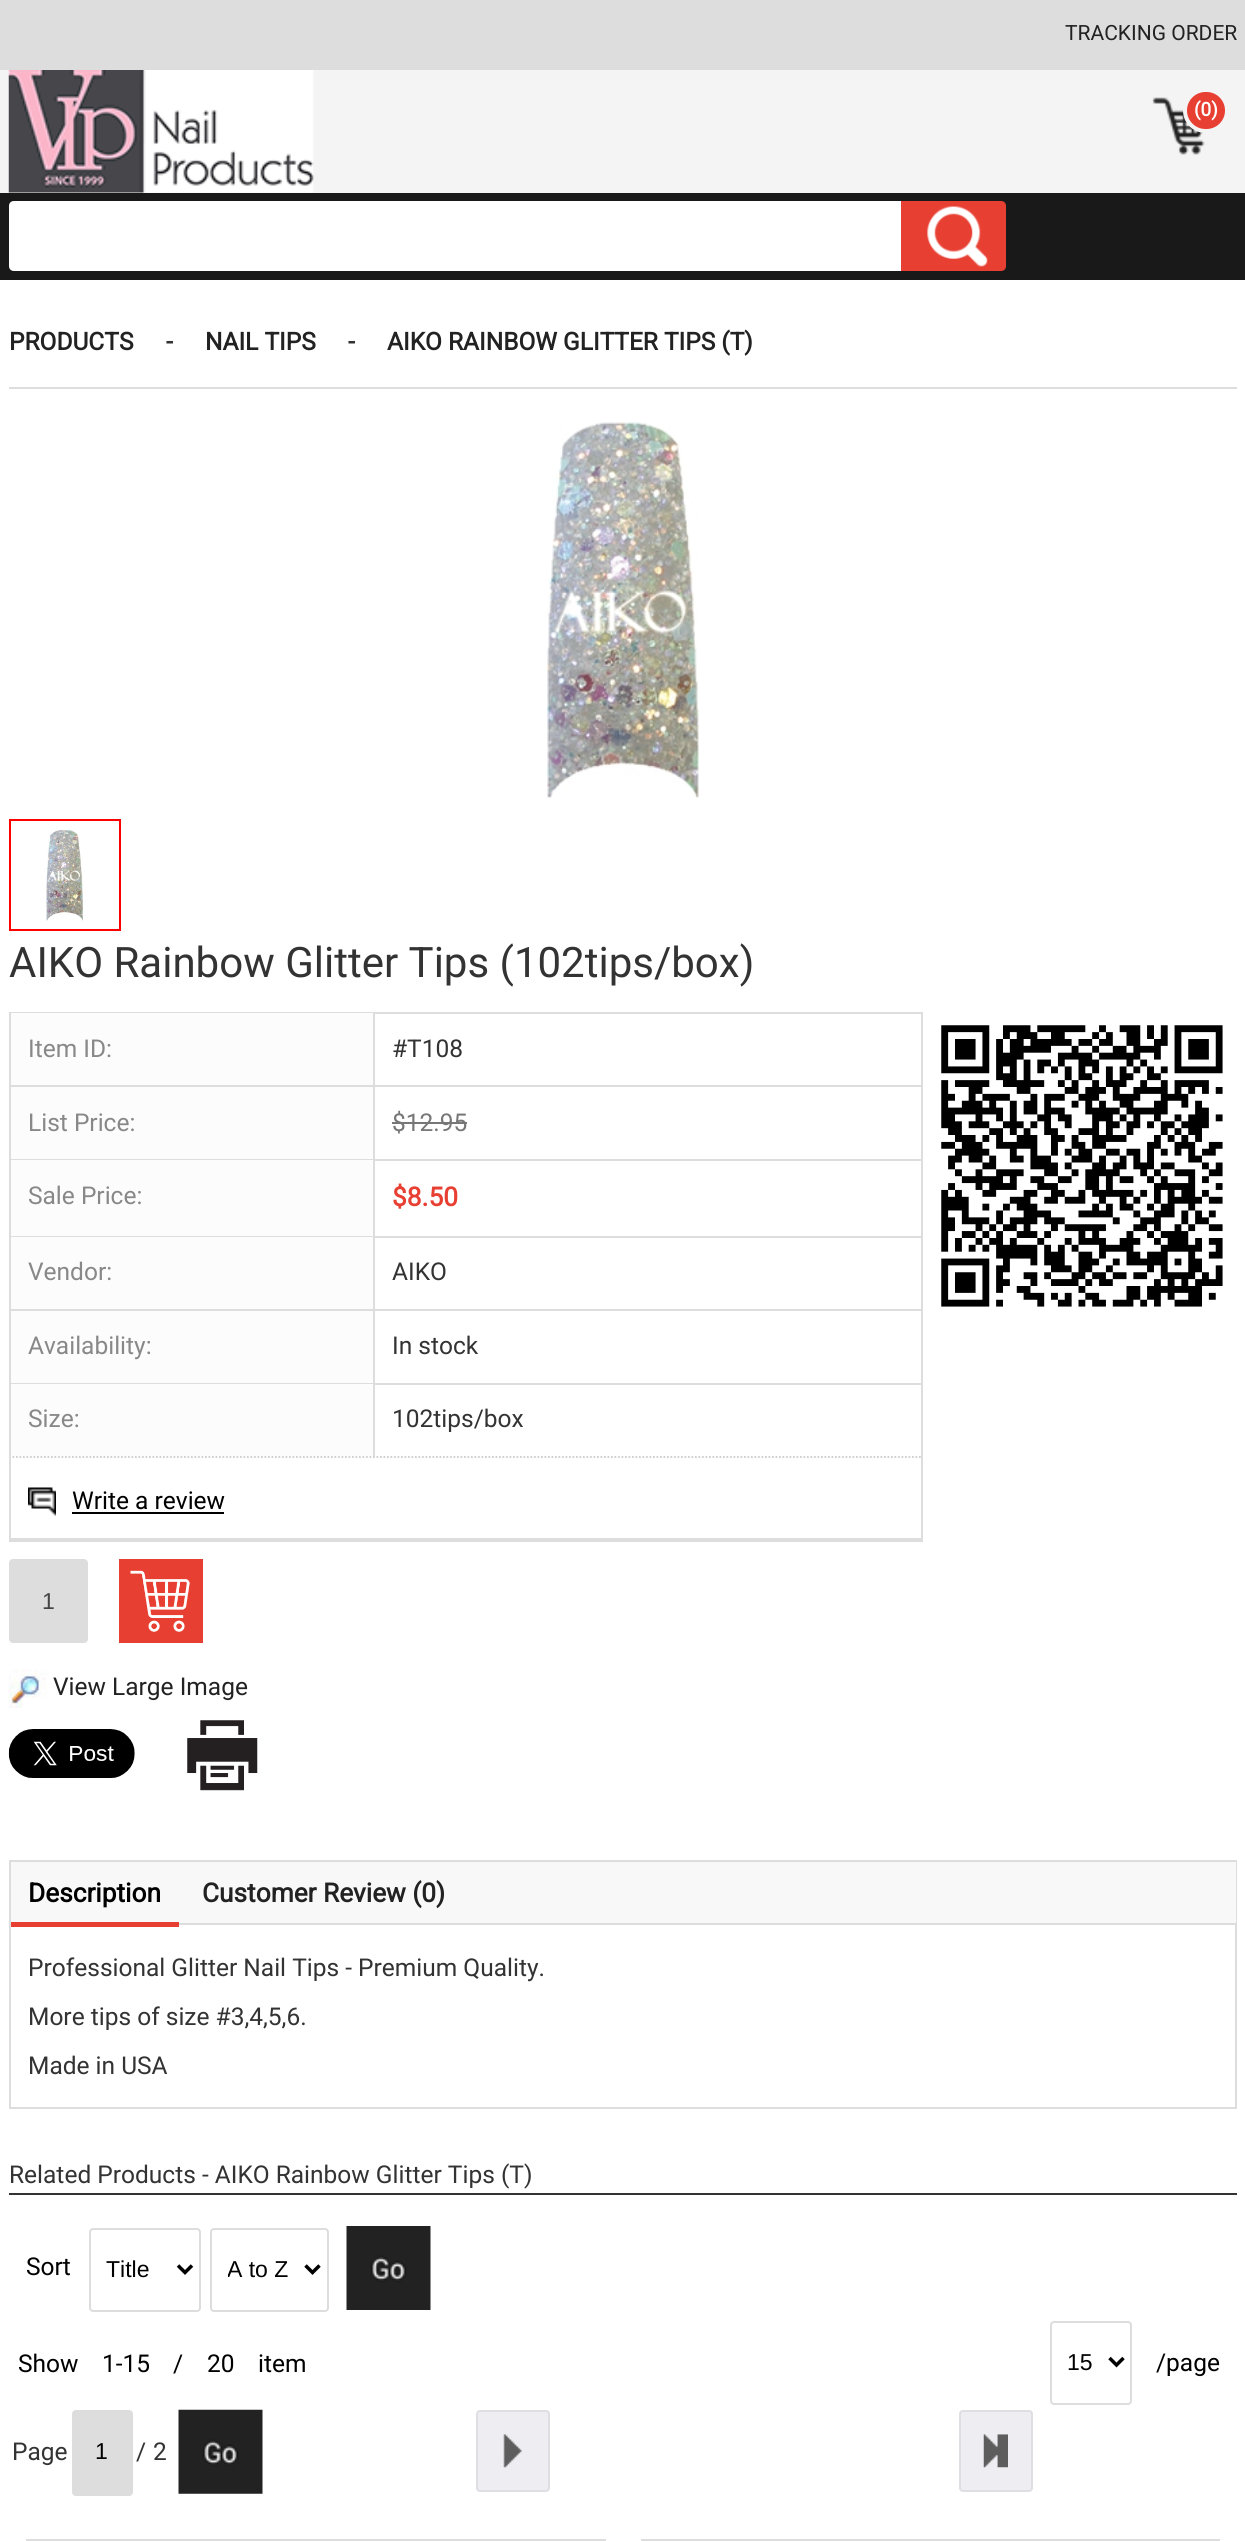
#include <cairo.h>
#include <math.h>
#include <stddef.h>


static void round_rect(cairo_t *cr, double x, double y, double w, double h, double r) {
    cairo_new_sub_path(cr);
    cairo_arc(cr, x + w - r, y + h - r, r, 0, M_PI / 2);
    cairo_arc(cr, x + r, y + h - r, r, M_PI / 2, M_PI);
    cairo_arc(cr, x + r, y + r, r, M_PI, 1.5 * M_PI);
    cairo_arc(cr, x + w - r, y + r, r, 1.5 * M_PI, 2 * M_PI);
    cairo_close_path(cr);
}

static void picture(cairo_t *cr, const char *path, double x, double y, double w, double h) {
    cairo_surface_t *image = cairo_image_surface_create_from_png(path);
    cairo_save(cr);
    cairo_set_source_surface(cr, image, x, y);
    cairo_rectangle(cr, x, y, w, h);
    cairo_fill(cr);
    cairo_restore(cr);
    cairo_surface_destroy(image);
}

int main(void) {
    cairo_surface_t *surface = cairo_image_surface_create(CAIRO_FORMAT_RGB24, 1245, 2541);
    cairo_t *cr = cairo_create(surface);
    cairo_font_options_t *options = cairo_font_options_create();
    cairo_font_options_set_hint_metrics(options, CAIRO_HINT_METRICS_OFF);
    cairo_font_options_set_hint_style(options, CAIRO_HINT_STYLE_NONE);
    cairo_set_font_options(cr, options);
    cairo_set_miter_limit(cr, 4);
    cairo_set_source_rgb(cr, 1, 1, 1);
    cairo_paint(cr);
    cairo_set_source_rgb(cr, 0.867, 0.867, 0.867);
    cairo_rectangle(cr, 0, 0, 1245, 70);
    cairo_fill(cr);
    cairo_select_font_face(cr, "Roboto", CAIRO_FONT_SLANT_NORMAL, CAIRO_FONT_WEIGHT_NORMAL);
    cairo_set_font_size(cr, 21);
    cairo_set_source_rgb(cr, 0.133, 0.133, 0.133);
    cairo_move_to(cr, 1065, 40);
    cairo_show_text(cr, "TRACKING ORDER");
    cairo_set_source_rgb(cr, 0.957, 0.957, 0.957);
    cairo_rectangle(cr, 0, 70, 1245, 123);
    cairo_fill(cr);
    picture(cr, "img1.png", 8, 70, 306, 123);
    picture(cr, "img2.png", 1152, 97, 53, 58);
    cairo_set_source_rgb(cr, 0.91, 0.247, 0.2);
    round_rect(cr, 1185, 90, 42, 41, 20.5);
    cairo_fill_preserve(cr);
    cairo_set_source_rgb(cr, 0.957, 0.957, 0.957);
    cairo_set_line_width(cr, 4);
    cairo_stroke(cr);
    cairo_select_font_face(cr, "Roboto", CAIRO_FONT_SLANT_NORMAL, CAIRO_FONT_WEIGHT_BOLD);
    cairo_set_font_size(cr, 19);
    cairo_set_source_rgb(cr, 1, 1, 1);
    cairo_move_to(cr, 1194, 116);
    cairo_show_text(cr, "(0)");
    cairo_set_source_rgb(cr, 0.098, 0.098, 0.098);
    cairo_rectangle(cr, 0, 193, 1245, 87);
    cairo_fill(cr);
    cairo_set_source_rgb(cr, 1, 1, 1);
    cairo_new_path(cr);
    cairo_move_to(cr, 14, 201);
    cairo_line_to(cr, 901, 201);
    cairo_line_to(cr, 901, 271);
    cairo_line_to(cr, 14, 271);
    cairo_curve_to(cr, 11, 271, 9, 269, 9, 266);
    cairo_line_to(cr, 9, 206);
    cairo_curve_to(cr, 9, 203, 11, 201, 14, 201);
    cairo_close_path(cr);
    cairo_fill(cr);
    cairo_set_source_rgb(cr, 0.91, 0.247, 0.2);
    cairo_new_path(cr);
    cairo_move_to(cr, 901, 201);
    cairo_line_to(cr, 1001, 201);
    cairo_curve_to(cr, 1004, 201, 1006, 203, 1006, 206);
    cairo_line_to(cr, 1006, 266);
    cairo_curve_to(cr, 1006, 269, 1004, 271, 1001, 271);
    cairo_line_to(cr, 901, 271);
    cairo_close_path(cr);
    cairo_fill(cr);
    picture(cr, "img3.png", 927, 206, 61, 61);
    cairo_set_source_rgb(cr, 0.867, 0.867, 0.867);
    cairo_rectangle(cr, 9, 387, 1228, 2);
    cairo_fill(cr);
    cairo_set_font_size(cr, 24.5);
    cairo_set_source_rgb(cr, 0.133, 0.133, 0.133);
    cairo_move_to(cr, 9, 350);
    cairo_show_text(cr, "PRODUCTS");
    cairo_set_source_rgb(cr, 0.2, 0.2, 0.2);
    cairo_move_to(cr, 166, 350);
    cairo_show_text(cr, "-");
    cairo_set_source_rgb(cr, 0.133, 0.133, 0.133);
    cairo_move_to(cr, 205, 350);
    cairo_show_text(cr, "NAIL TIPS");
    cairo_set_source_rgb(cr, 0.2, 0.2, 0.2);
    cairo_move_to(cr, 348, 350);
    cairo_show_text(cr, "-");
    cairo_set_source_rgb(cr, 0.133, 0.133, 0.133);
    cairo_move_to(cr, 387, 350);
    cairo_show_text(cr, "AIKO RAINBOW GLITTER TIPS (T)");
    picture(cr, "img4.png", 546, 422, 153, 377);
    cairo_rectangle(cr, 10, 820, 110, 110);
    cairo_set_source_rgb(cr, 1, 0, 0);
    cairo_set_line_width(cr, 2);
    cairo_stroke(cr);
    picture(cr, "img5.png", 46, 830, 37, 91);
    cairo_select_font_face(cr, "Roboto", CAIRO_FONT_SLANT_NORMAL, CAIRO_FONT_WEIGHT_NORMAL);
    cairo_set_font_size(cr, 42);
    cairo_set_source_rgb(cr, 0.2, 0.2, 0.2);
    cairo_move_to(cr, 9, 977);
    cairo_show_text(cr, "AIKO Rainbow Glitter Tips (102tips/box)");
    cairo_set_source_rgb(cr, 0.867, 0.867, 0.867);
    cairo_rectangle(cr, 9, 1012, 913, 2);
    cairo_fill(cr);
    cairo_rectangle(cr, 921, 1012, 2, 73);
    cairo_fill(cr);
    cairo_rectangle(cr, 9, 1012, 2, 73);
    cairo_fill(cr);
    cairo_set_source_rgb(cr, 0.988, 0.988, 0.988);
    cairo_rectangle(cr, 11, 1013, 362, 72);
    cairo_fill(cr);
    cairo_set_source_rgb(cr, 0.867, 0.867, 0.867);
    cairo_rectangle(cr, 373, 1013, 2, 72);
    cairo_fill(cr);
    cairo_set_font_size(cr, 24.5);
    cairo_set_source_rgb(cr, 0.533, 0.533, 0.533);
    cairo_move_to(cr, 28, 1057);
    cairo_show_text(cr, "Item ID:");
    cairo_set_source_rgb(cr, 0.2, 0.2, 0.2);
    cairo_move_to(cr, 392, 1057);
    cairo_show_text(cr, "#T108");
    cairo_set_source_rgb(cr, 0.867, 0.867, 0.867);
    cairo_rectangle(cr, 9, 1085, 913, 2);
    cairo_fill(cr);
    cairo_rectangle(cr, 921, 1085, 2, 74);
    cairo_fill(cr);
    cairo_rectangle(cr, 9, 1085, 2, 74);
    cairo_fill(cr);
    cairo_set_source_rgb(cr, 0.988, 0.988, 0.988);
    cairo_rectangle(cr, 11, 1087, 362, 72);
    cairo_fill(cr);
    cairo_set_source_rgb(cr, 0.867, 0.867, 0.867);
    cairo_rectangle(cr, 373, 1087, 2, 72);
    cairo_fill(cr);
    cairo_set_source_rgb(cr, 0.533, 0.533, 0.533);
    cairo_move_to(cr, 28, 1131);
    cairo_show_text(cr, "List Price:");
    cairo_set_source_rgb(cr, 0.467, 0.467, 0.467);
    cairo_move_to(cr, 392, 1131);
    cairo_show_text(cr, "$12.95");
    cairo_rectangle(cr, 392, 1122, 75, 2);
    cairo_fill(cr);
    cairo_set_source_rgb(cr, 0.867, 0.867, 0.867);
    cairo_rectangle(cr, 9, 1159, 913, 2);
    cairo_fill(cr);
    cairo_rectangle(cr, 921, 1159, 2, 77);
    cairo_fill(cr);
    cairo_rectangle(cr, 9, 1159, 2, 77);
    cairo_fill(cr);
    cairo_set_source_rgb(cr, 0.988, 0.988, 0.988);
    cairo_rectangle(cr, 11, 1160, 362, 76);
    cairo_fill(cr);
    cairo_set_source_rgb(cr, 0.867, 0.867, 0.867);
    cairo_rectangle(cr, 373, 1160, 2, 76);
    cairo_fill(cr);
    cairo_set_source_rgb(cr, 0.533, 0.533, 0.533);
    cairo_move_to(cr, 28, 1204);
    cairo_show_text(cr, "Sale Price:");
    cairo_select_font_face(cr, "Roboto", CAIRO_FONT_SLANT_NORMAL, CAIRO_FONT_WEIGHT_BOLD);
    cairo_set_font_size(cr, 26.25);
    cairo_set_source_rgb(cr, 0.91, 0.247, 0.2);
    cairo_move_to(cr, 392, 1206);
    cairo_show_text(cr, "$8.50");
    cairo_set_source_rgb(cr, 0.867, 0.867, 0.867);
    cairo_rectangle(cr, 9, 1236, 913, 2);
    cairo_fill(cr);
    cairo_rectangle(cr, 921, 1236, 2, 73);
    cairo_fill(cr);
    cairo_rectangle(cr, 9, 1236, 2, 73);
    cairo_fill(cr);
    cairo_set_source_rgb(cr, 0.988, 0.988, 0.988);
    cairo_rectangle(cr, 11, 1237, 362, 72);
    cairo_fill(cr);
    cairo_set_source_rgb(cr, 0.867, 0.867, 0.867);
    cairo_rectangle(cr, 373, 1237, 2, 72);
    cairo_fill(cr);
    cairo_select_font_face(cr, "Roboto", CAIRO_FONT_SLANT_NORMAL, CAIRO_FONT_WEIGHT_NORMAL);
    cairo_set_font_size(cr, 24.5);
    cairo_set_source_rgb(cr, 0.533, 0.533, 0.533);
    cairo_move_to(cr, 28, 1280);
    cairo_show_text(cr, "Vendor:");
    cairo_set_source_rgb(cr, 0.2, 0.2, 0.2);
    cairo_move_to(cr, 392, 1280);
    cairo_show_text(cr, "AIKO");
    cairo_set_source_rgb(cr, 0.867, 0.867, 0.867);
    cairo_rectangle(cr, 9, 1309, 913, 2);
    cairo_fill(cr);
    cairo_rectangle(cr, 921, 1309, 2, 74);
    cairo_fill(cr);
    cairo_rectangle(cr, 9, 1309, 2, 74);
    cairo_fill(cr);
    cairo_set_source_rgb(cr, 0.988, 0.988, 0.988);
    cairo_rectangle(cr, 11, 1311, 362, 72);
    cairo_fill(cr);
    cairo_set_source_rgb(cr, 0.867, 0.867, 0.867);
    cairo_rectangle(cr, 373, 1311, 2, 72);
    cairo_fill(cr);
    cairo_set_source_rgb(cr, 0.533, 0.533, 0.533);
    cairo_move_to(cr, 28, 1354);
    cairo_show_text(cr, "Availability:");
    cairo_set_source_rgb(cr, 0.2, 0.2, 0.2);
    cairo_move_to(cr, 392, 1354);
    cairo_show_text(cr, "In stock");
    cairo_set_source_rgb(cr, 0.867, 0.867, 0.867);
    cairo_rectangle(cr, 9, 1383, 913, 2);
    cairo_fill(cr);
    cairo_rectangle(cr, 921, 1383, 2, 155);
    cairo_fill(cr);
    cairo_rectangle(cr, 9, 1383, 2, 73);
    cairo_fill(cr);
    cairo_set_source_rgb(cr, 0.988, 0.988, 0.988);
    cairo_rectangle(cr, 11, 1384, 362, 72);
    cairo_fill(cr);
    cairo_set_source_rgb(cr, 0.867, 0.867, 0.867);
    cairo_rectangle(cr, 373, 1384, 2, 72);
    cairo_fill(cr);
    cairo_set_source_rgb(cr, 0.533, 0.533, 0.533);
    cairo_move_to(cr, 28, 1427);
    cairo_show_text(cr, "Size:");
    cairo_set_source_rgb(cr, 0.2, 0.2, 0.2);
    cairo_move_to(cr, 392, 1427);
    cairo_show_text(cr, "102tips/box");
    cairo_new_path(cr);
    cairo_move_to(cr, 9, 1457);
    cairo_line_to(cr, 922, 1457);
    cairo_set_source_rgb(cr, 0.8, 0.8, 0.8);
    cairo_set_line_width(cr, 1.8);
    cairo_set_dash(cr, (double[]){1.75, 1.75}, 2, 0);
    cairo_stroke(cr);
    cairo_set_source_rgb(cr, 0.867, 0.867, 0.867);
    cairo_rectangle(cr, 9, 1456, 2, 82);
    cairo_fill(cr);
    picture(cr, "img6.png", 28, 1487, 28, 29);
    cairo_set_source_rgb(cr, 0, 0, 0);
    cairo_move_to(cr, 72, 1509);
    cairo_show_text(cr, "Write a review");
    cairo_rectangle(cr, 72, 1512, 152, 2);
    cairo_fill(cr);
    cairo_set_source_rgb(cr, 0.867, 0.867, 0.867);
    cairo_rectangle(cr, 9, 1538, 914, 2);
    cairo_fill(cr);
    cairo_rectangle(cr, 9, 1540, 914, 2);
    cairo_fill(cr);
    picture(cr, "img7.png", 941, 1025, 282, 282);
    round_rect(cr, 10, 1560, 77, 82, 3);
    cairo_fill_preserve(cr);
    cairo_set_line_width(cr, 2);
    cairo_set_dash(cr, NULL, 0, 0);
    cairo_stroke(cr);
    cairo_select_font_face(cr, "Liberation Sans", CAIRO_FONT_SLANT_NORMAL, CAIRO_FONT_WEIGHT_NORMAL);
    cairo_set_font_size(cr, 23);
    cairo_set_source_rgb(cr, 0.267, 0.267, 0.267);
    cairo_move_to(cr, 42, 1609);
    cairo_show_text(cr, "1");
    cairo_set_source_rgb(cr, 0.91, 0.247, 0.2);
    cairo_rectangle(cr, 119, 1559, 84, 84);
    cairo_fill(cr);
    picture(cr, "img8.png", 130, 1570, 60, 62);
    picture(cr, "img9.png", 8, 1669, 39, 39);
    cairo_select_font_face(cr, "Roboto", CAIRO_FONT_SLANT_NORMAL, CAIRO_FONT_WEIGHT_NORMAL);
    cairo_set_font_size(cr, 24.5);
    cairo_set_source_rgb(cr, 0.133, 0.133, 0.133);
    cairo_move_to(cr, 53, 1695);
    cairo_show_text(cr, "View Large Image");
    picture(cr, "img10.png", 8, 1729, 127, 49);
    picture(cr, "img11.png", 187, 1720, 71, 71);
    cairo_rectangle(cr, 10, 1861, 1226, 247);
    cairo_set_source_rgb(cr, 0.867, 0.867, 0.867);
    cairo_stroke(cr);
    cairo_set_source_rgb(cr, 0.969, 0.969, 0.969);
    cairo_rectangle(cr, 179, 1862, 1057, 61);
    cairo_fill(cr);
    cairo_set_source_rgb(cr, 0.867, 0.867, 0.867);
    cairo_rectangle(cr, 179, 1923, 1057, 2);
    cairo_fill(cr);
    cairo_set_source_rgb(cr, 0.969, 0.969, 0.969);
    cairo_rectangle(cr, 11, 1862, 168, 60);
    cairo_fill(cr);
    cairo_set_source_rgb(cr, 0.91, 0.247, 0.2);
    cairo_rectangle(cr, 11, 1922, 168, 5);
    cairo_fill(cr);
    cairo_select_font_face(cr, "Roboto", CAIRO_FONT_SLANT_NORMAL, CAIRO_FONT_WEIGHT_BOLD);
    cairo_set_font_size(cr, 26.25);
    cairo_set_source_rgb(cr, 0, 0, 0);
    cairo_move_to(cr, 28, 1902);
    cairo_show_text(cr, "Description");
    cairo_set_source_rgb(cr, 0.133, 0.133, 0.133);
    cairo_move_to(cr, 202, 1902);
    cairo_show_text(cr, "Customer Review (0)");
    cairo_select_font_face(cr, "Roboto", CAIRO_FONT_SLANT_NORMAL, CAIRO_FONT_WEIGHT_NORMAL);
    cairo_set_font_size(cr, 24.5);
    cairo_set_source_rgb(cr, 0.2, 0.2, 0.2);
    cairo_move_to(cr, 28, 1976);
    cairo_show_text(cr, "Professional Glitter Nail Tips - Premium Quality.");
    cairo_move_to(cr, 28, 2025);
    cairo_show_text(cr, "More tips of size #3,4,5,6.");
    cairo_move_to(cr, 28, 2074);
    cairo_show_text(cr, "Made in USA");
    cairo_rectangle(cr, 9, 2193, 1228, 2);
    cairo_fill(cr);
    cairo_move_to(cr, 9, 2183);
    cairo_show_text(cr, "Related Products - AIKO Rainbow Glitter Tips (T)");
    cairo_set_source_rgb(cr, 0, 0, 0);
    cairo_move_to(cr, 26, 2275);
    cairo_show_text(cr, "Sort");
    round_rect(cr, 90, 2229, 110, 82, 3);
    cairo_set_source_rgb(cr, 0.867, 0.867, 0.867);
    cairo_stroke(cr);
    cairo_new_path(cr);
    cairo_move_to(cr, 178, 2265.5);
    cairo_line_to(cr, 185, 2272.5);
    cairo_line_to(cr, 192, 2265.5);
    cairo_set_source_rgb(cr, 0, 0, 0);
    cairo_set_line_width(cr, 3.5);
    cairo_stroke(cr);
    cairo_select_font_face(cr, "Liberation Sans", CAIRO_FONT_SLANT_NORMAL, CAIRO_FONT_WEIGHT_NORMAL);
    cairo_set_font_size(cr, 23);
    cairo_move_to(cr, 106, 2277);
    cairo_show_text(cr, "Title");
    round_rect(cr, 211, 2229, 117, 82, 3);
    cairo_set_source_rgb(cr, 0.867, 0.867, 0.867);
    cairo_set_line_width(cr, 2);
    cairo_stroke(cr);
    cairo_new_path(cr);
    cairo_move_to(cr, 305.5, 2265.5);
    cairo_line_to(cr, 312.5, 2272.5);
    cairo_line_to(cr, 319.5, 2265.5);
    cairo_set_source_rgb(cr, 0, 0, 0);
    cairo_set_line_width(cr, 3.5);
    cairo_stroke(cr);
    cairo_save(cr);
    cairo_rectangle(cr, 228, 2254, 63, 30);
    cairo_clip(cr);
    cairo_move_to(cr, 227, 2277);
    cairo_show_text(cr, "A to Z");
    cairo_restore(cr);
    picture(cr, "img12.png", 346, 2226, 85, 84);
    cairo_select_font_face(cr, "Roboto", CAIRO_FONT_SLANT_NORMAL, CAIRO_FONT_WEIGHT_NORMAL);
    cairo_set_font_size(cr, 24.5);
    cairo_move_to(cr, 18, 2372);
    cairo_show_text(cr, "Show");
    cairo_move_to(cr, 102, 2372);
    cairo_show_text(cr, "1-15");
    cairo_move_to(cr, 173, 2372);
    cairo_show_text(cr, "/");
    cairo_move_to(cr, 207, 2372);
    cairo_show_text(cr, "20");
    cairo_move_to(cr, 258, 2372);
    cairo_show_text(cr, "item");
    round_rect(cr, 1051, 2322, 80, 82, 3);
    cairo_set_source_rgb(cr, 0.867, 0.867, 0.867);
    cairo_set_line_width(cr, 2);
    cairo_stroke(cr);
    cairo_new_path(cr);
    cairo_move_to(cr, 1109.5, 2358);
    cairo_line_to(cr, 1116.5, 2365);
    cairo_line_to(cr, 1123.5, 2358);
    cairo_set_source_rgb(cr, 0, 0, 0);
    cairo_set_line_width(cr, 3.5);
    cairo_stroke(cr);
    cairo_select_font_face(cr, "Liberation Sans", CAIRO_FONT_SLANT_NORMAL, CAIRO_FONT_WEIGHT_NORMAL);
    cairo_set_font_size(cr, 23);
    cairo_move_to(cr, 1067, 2370);
    cairo_show_text(cr, "15");
    cairo_select_font_face(cr, "Roboto", CAIRO_FONT_SLANT_NORMAL, CAIRO_FONT_WEIGHT_NORMAL);
    cairo_set_font_size(cr, 24.5);
    cairo_move_to(cr, 1156, 2371);
    cairo_show_text(cr, "/page");
    cairo_set_source_rgb(cr, 0.2, 0.2, 0.2);
    cairo_move_to(cr, 12, 2460);
    cairo_show_text(cr, "Page");
    cairo_set_source_rgb(cr, 0.867, 0.867, 0.867);
    round_rect(cr, 72, 2410, 61, 86, 4);
    cairo_fill(cr);
    cairo_select_font_face(cr, "Liberation Sans", CAIRO_FONT_SLANT_NORMAL, CAIRO_FONT_WEIGHT_NORMAL);
    cairo_set_font_size(cr, 23);
    cairo_set_source_rgb(cr, 0, 0, 0);
    cairo_move_to(cr, 95, 2459);
    cairo_show_text(cr, "1");
    cairo_select_font_face(cr, "Roboto", CAIRO_FONT_SLANT_NORMAL, CAIRO_FONT_WEIGHT_NORMAL);
    cairo_set_font_size(cr, 24.5);
    cairo_set_source_rgb(cr, 0.2, 0.2, 0.2);
    cairo_move_to(cr, 136, 2460);
    cairo_show_text(cr, "/");
    cairo_move_to(cr, 153, 2460);
    cairo_show_text(cr, "2");
    picture(cr, "img13.png", 178, 2409, 85, 85);
    cairo_set_source_rgb(cr, 0.933, 0.929, 0.949);
    round_rect(cr, 477, 2411, 72, 80, 3);
    cairo_fill_preserve(cr);
    cairo_set_source_rgb(cr, 0.875, 0.871, 0.89);
    cairo_set_line_width(cr, 2);
    cairo_stroke(cr);
    picture(cr, "img14.png", 503, 2434, 19, 34);
    cairo_set_source_rgb(cr, 0.933, 0.929, 0.949);
    round_rect(cr, 960, 2411, 72, 80, 3);
    cairo_fill_preserve(cr);
    cairo_set_source_rgb(cr, 0.875, 0.871, 0.89);
    cairo_stroke(cr);
    picture(cr, "img15.png", 983, 2434, 25, 34);
    cairo_rectangle(cr, 27, 2540, 578, 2);
    cairo_set_source_rgb(cr, 0.867, 0.867, 0.867);
    cairo_stroke(cr);
    cairo_rectangle(cr, 642, 2540, 577, 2);
    cairo_stroke(cr);
    cairo_surface_write_to_png(surface, "page.png");
    cairo_font_options_destroy(options);
    cairo_destroy(cr);
    cairo_surface_destroy(surface);
    return 0;
}
